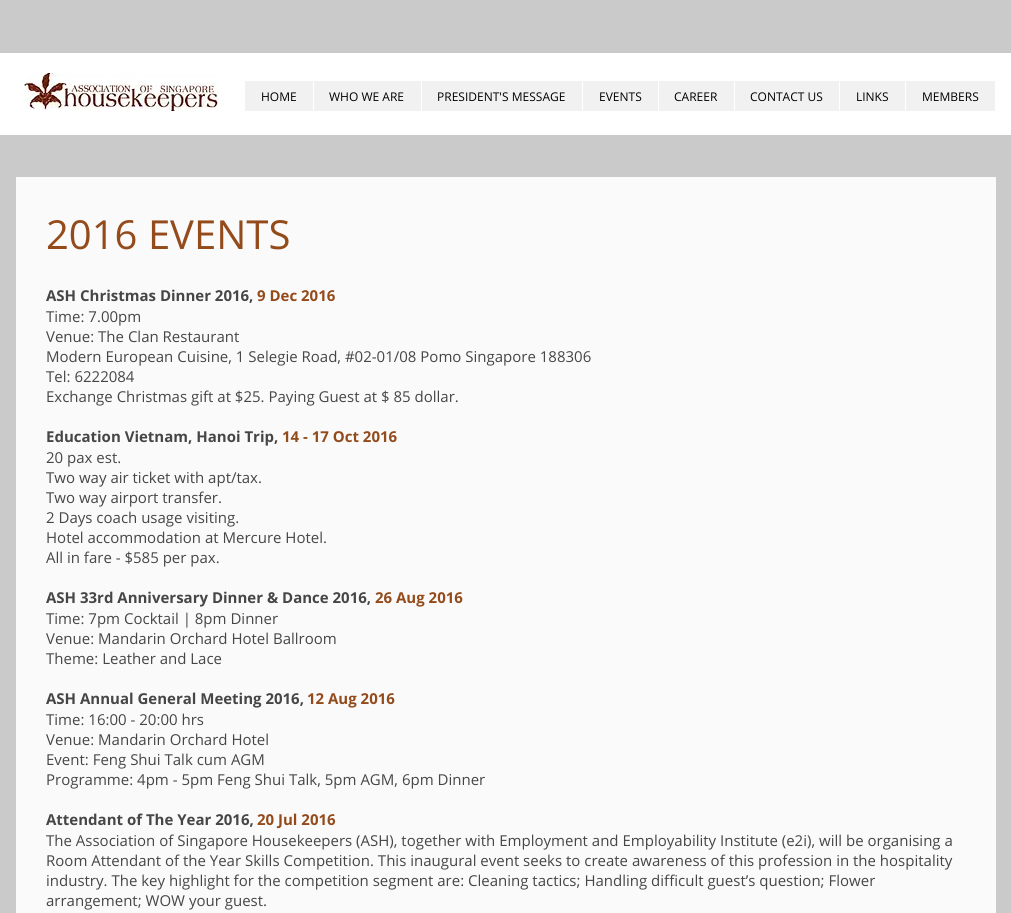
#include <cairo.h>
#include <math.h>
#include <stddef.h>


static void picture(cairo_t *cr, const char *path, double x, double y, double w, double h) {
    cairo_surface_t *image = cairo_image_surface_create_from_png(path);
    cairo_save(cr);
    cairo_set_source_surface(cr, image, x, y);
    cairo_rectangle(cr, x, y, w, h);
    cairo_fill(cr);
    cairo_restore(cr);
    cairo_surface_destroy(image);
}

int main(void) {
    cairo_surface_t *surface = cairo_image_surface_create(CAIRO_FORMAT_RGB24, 1011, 913);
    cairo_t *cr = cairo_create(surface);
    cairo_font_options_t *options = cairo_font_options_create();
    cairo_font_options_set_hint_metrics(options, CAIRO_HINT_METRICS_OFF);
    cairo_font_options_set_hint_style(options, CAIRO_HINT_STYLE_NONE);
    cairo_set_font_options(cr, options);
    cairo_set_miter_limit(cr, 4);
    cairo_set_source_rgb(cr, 0.792, 0.792, 0.792);
    cairo_paint(cr);
    cairo_set_source_rgb(cr, 1, 1, 1);
    cairo_rectangle(cr, 0, 53, 1011, 82);
    cairo_fill(cr);
    picture(cr, "img1.png", 24, 73, 195, 38);
    cairo_set_source_rgb(cr, 0.945, 0.945, 0.945);
    cairo_rectangle(cr, 245, 81, 750, 30);
    cairo_fill(cr);
    cairo_select_font_face(cr, "Open Sans", CAIRO_FONT_SLANT_NORMAL, CAIRO_FONT_WEIGHT_NORMAL);
    cairo_set_font_size(cr, 12);
    cairo_set_source_rgb(cr, 0, 0, 0);
    cairo_move_to(cr, 261, 101);
    cairo_show_text(cr, "HOME");
    cairo_set_source_rgb(cr, 1, 1, 1);
    cairo_rectangle(cr, 313, 81, 1, 30);
    cairo_fill(cr);
    cairo_set_source_rgb(cr, 0, 0, 0);
    cairo_move_to(cr, 329, 101);
    cairo_show_text(cr, "WHO WE ARE");
    cairo_set_source_rgb(cr, 1, 1, 1);
    cairo_rectangle(cr, 421, 81, 1, 30);
    cairo_fill(cr);
    cairo_set_source_rgb(cr, 0, 0, 0);
    cairo_move_to(cr, 437, 101);
    cairo_show_text(cr, "PRESIDENT'S MESSAGE");
    cairo_set_source_rgb(cr, 1, 1, 1);
    cairo_rectangle(cr, 582, 81, 1, 30);
    cairo_fill(cr);
    cairo_set_source_rgb(cr, 0, 0, 0);
    cairo_move_to(cr, 599, 101);
    cairo_show_text(cr, "EVENTS");
    cairo_set_source_rgb(cr, 1, 1, 1);
    cairo_rectangle(cr, 658, 81, 1, 30);
    cairo_fill(cr);
    cairo_set_source_rgb(cr, 0, 0, 0);
    cairo_move_to(cr, 674, 101);
    cairo_show_text(cr, "CAREER");
    cairo_set_source_rgb(cr, 1, 1, 1);
    cairo_rectangle(cr, 734, 81, 1, 30);
    cairo_fill(cr);
    cairo_set_source_rgb(cr, 0, 0, 0);
    cairo_move_to(cr, 750, 101);
    cairo_show_text(cr, "CONTACT US");
    cairo_set_source_rgb(cr, 1, 1, 1);
    cairo_rectangle(cr, 839, 81, 1, 30);
    cairo_fill(cr);
    cairo_set_source_rgb(cr, 0, 0, 0);
    cairo_move_to(cr, 856, 101);
    cairo_show_text(cr, "LINKS");
    cairo_set_source_rgb(cr, 1, 1, 1);
    cairo_rectangle(cr, 905, 81, 1, 30);
    cairo_fill(cr);
    cairo_set_source_rgb(cr, 0, 0, 0);
    cairo_move_to(cr, 922, 101);
    cairo_show_text(cr, "MEMBERS");
    cairo_set_source_rgb(cr, 0.98, 0.98, 0.98);
    cairo_rectangle(cr, 16, 177, 980, 736);
    cairo_fill(cr);
    cairo_set_font_size(cr, 40);
    cairo_set_source_rgb(cr, 0.58, 0.294, 0.106);
    cairo_move_to(cr, 46, 249);
    cairo_show_text(cr, "2016 EVENTS");
    cairo_select_font_face(cr, "Open Sans", CAIRO_FONT_SLANT_NORMAL, CAIRO_FONT_WEIGHT_BOLD);
    cairo_set_font_size(cr, 15);
    cairo_set_source_rgb(cr, 0.275, 0.275, 0.275);
    cairo_move_to(cr, 46, 301);
    cairo_show_text(cr, "ASH Christmas Dinner 2016,");
    cairo_set_source_rgb(cr, 0.58, 0.294, 0.106);
    cairo_move_to(cr, 257, 301);
    cairo_show_text(cr, "9 Dec 2016");
    cairo_select_font_face(cr, "Open Sans", CAIRO_FONT_SLANT_NORMAL, CAIRO_FONT_WEIGHT_NORMAL);
    cairo_set_source_rgb(cr, 0.275, 0.275, 0.275);
    cairo_move_to(cr, 46, 322);
    cairo_show_text(cr, "Time: 7.00pm");
    cairo_move_to(cr, 46, 342);
    cairo_show_text(cr, "Venue: The Clan Restaurant");
    cairo_move_to(cr, 46, 362);
    cairo_show_text(cr, "Modern European Cuisine, 1 Selegie Road, #02-01/08 Pomo Singapore 188306");
    cairo_move_to(cr, 46, 382);
    cairo_show_text(cr, "Tel: 6222084");
    cairo_move_to(cr, 46, 402);
    cairo_show_text(cr, "Exchange Christmas gift at $25. Paying Guest at $ 85 dollar.");
    cairo_select_font_face(cr, "Open Sans", CAIRO_FONT_SLANT_NORMAL, CAIRO_FONT_WEIGHT_BOLD);
    cairo_move_to(cr, 46, 442);
    cairo_show_text(cr, "Education Vietnam, Hanoi Trip,");
    cairo_set_source_rgb(cr, 0.58, 0.294, 0.106);
    cairo_move_to(cr, 282, 442);
    cairo_show_text(cr, "14 - 17 Oct 2016");
    cairo_select_font_face(cr, "Open Sans", CAIRO_FONT_SLANT_NORMAL, CAIRO_FONT_WEIGHT_NORMAL);
    cairo_set_source_rgb(cr, 0.275, 0.275, 0.275);
    cairo_move_to(cr, 46, 463);
    cairo_show_text(cr, "20 pax est.");
    cairo_move_to(cr, 46, 483);
    cairo_show_text(cr, "Two way air ticket with apt/tax.");
    cairo_move_to(cr, 46, 503);
    cairo_show_text(cr, "Two way airport transfer.");
    cairo_move_to(cr, 46, 523);
    cairo_show_text(cr, "2 Days coach usage visiting.");
    cairo_move_to(cr, 46, 543);
    cairo_show_text(cr, "Hotel accommodation at Mercure Hotel.");
    cairo_move_to(cr, 46, 563);
    cairo_show_text(cr, "All in fare - $585 per pax.");
    cairo_select_font_face(cr, "Open Sans", CAIRO_FONT_SLANT_NORMAL, CAIRO_FONT_WEIGHT_BOLD);
    cairo_move_to(cr, 46, 603);
    cairo_show_text(cr, "ASH 33rd Anniversary Dinner & Dance 2016,");
    cairo_set_source_rgb(cr, 0.58, 0.294, 0.106);
    cairo_move_to(cr, 375, 603);
    cairo_show_text(cr, "26 Aug 2016");
    cairo_select_font_face(cr, "Open Sans", CAIRO_FONT_SLANT_NORMAL, CAIRO_FONT_WEIGHT_NORMAL);
    cairo_set_source_rgb(cr, 0.275, 0.275, 0.275);
    cairo_move_to(cr, 46, 624);
    cairo_show_text(cr, "Time: 7pm Cocktail | 8pm Dinner");
    cairo_move_to(cr, 46, 644);
    cairo_show_text(cr, "Venue: Mandarin Orchard Hotel Ballroom");
    cairo_move_to(cr, 46, 664);
    cairo_show_text(cr, "Theme: Leather and Lace");
    cairo_select_font_face(cr, "Open Sans", CAIRO_FONT_SLANT_NORMAL, CAIRO_FONT_WEIGHT_BOLD);
    cairo_move_to(cr, 46, 704);
    cairo_show_text(cr, "ASH Annual General Meeting 2016,");
    cairo_set_source_rgb(cr, 0.58, 0.294, 0.106);
    cairo_move_to(cr, 307, 704);
    cairo_show_text(cr, "12 Aug 2016");
    cairo_select_font_face(cr, "Open Sans", CAIRO_FONT_SLANT_NORMAL, CAIRO_FONT_WEIGHT_NORMAL);
    cairo_set_source_rgb(cr, 0.275, 0.275, 0.275);
    cairo_move_to(cr, 46, 725);
    cairo_show_text(cr, "Time: 16:00 - 20:00 hrs");
    cairo_move_to(cr, 46, 745);
    cairo_show_text(cr, "Venue: Mandarin Orchard Hotel");
    cairo_move_to(cr, 46, 765);
    cairo_show_text(cr, "Event: Feng Shui Talk cum AGM");
    cairo_move_to(cr, 46, 785);
    cairo_show_text(cr, "Programme: 4pm - 5pm Feng Shui Talk, 5pm AGM, 6pm Dinner");
    cairo_select_font_face(cr, "Open Sans", CAIRO_FONT_SLANT_NORMAL, CAIRO_FONT_WEIGHT_BOLD);
    cairo_move_to(cr, 46, 825);
    cairo_show_text(cr, "Attendant of The Year 2016,");
    cairo_set_source_rgb(cr, 0.58, 0.294, 0.106);
    cairo_move_to(cr, 257, 825);
    cairo_show_text(cr, "20 Jul 2016");
    cairo_select_font_face(cr, "Open Sans", CAIRO_FONT_SLANT_NORMAL, CAIRO_FONT_WEIGHT_NORMAL);
    cairo_set_source_rgb(cr, 0.275, 0.275, 0.275);
    cairo_move_to(cr, 46, 846);
    cairo_show_text(cr, "The Association of Singapore Housekeepers (ASH), together with Employment and Employability Institute (e2i), will be organising a");
    cairo_move_to(cr, 46, 866);
    cairo_show_text(cr, "Room Attendant of the Year Skills Competition. This inaugural event seeks to create awareness of this profession in the hospitality");
    cairo_move_to(cr, 46, 886);
    cairo_show_text(cr, "industry. The key highlight for the competition segment are: Cleaning tactics; Handling difficult guest’s question; Flower");
    cairo_move_to(cr, 46, 906);
    cairo_show_text(cr, "arrangement; WOW your guest.");
    cairo_surface_write_to_png(surface, "page.png");
    cairo_font_options_destroy(options);
    cairo_destroy(cr);
    cairo_surface_destroy(surface);
    return 0;
}
